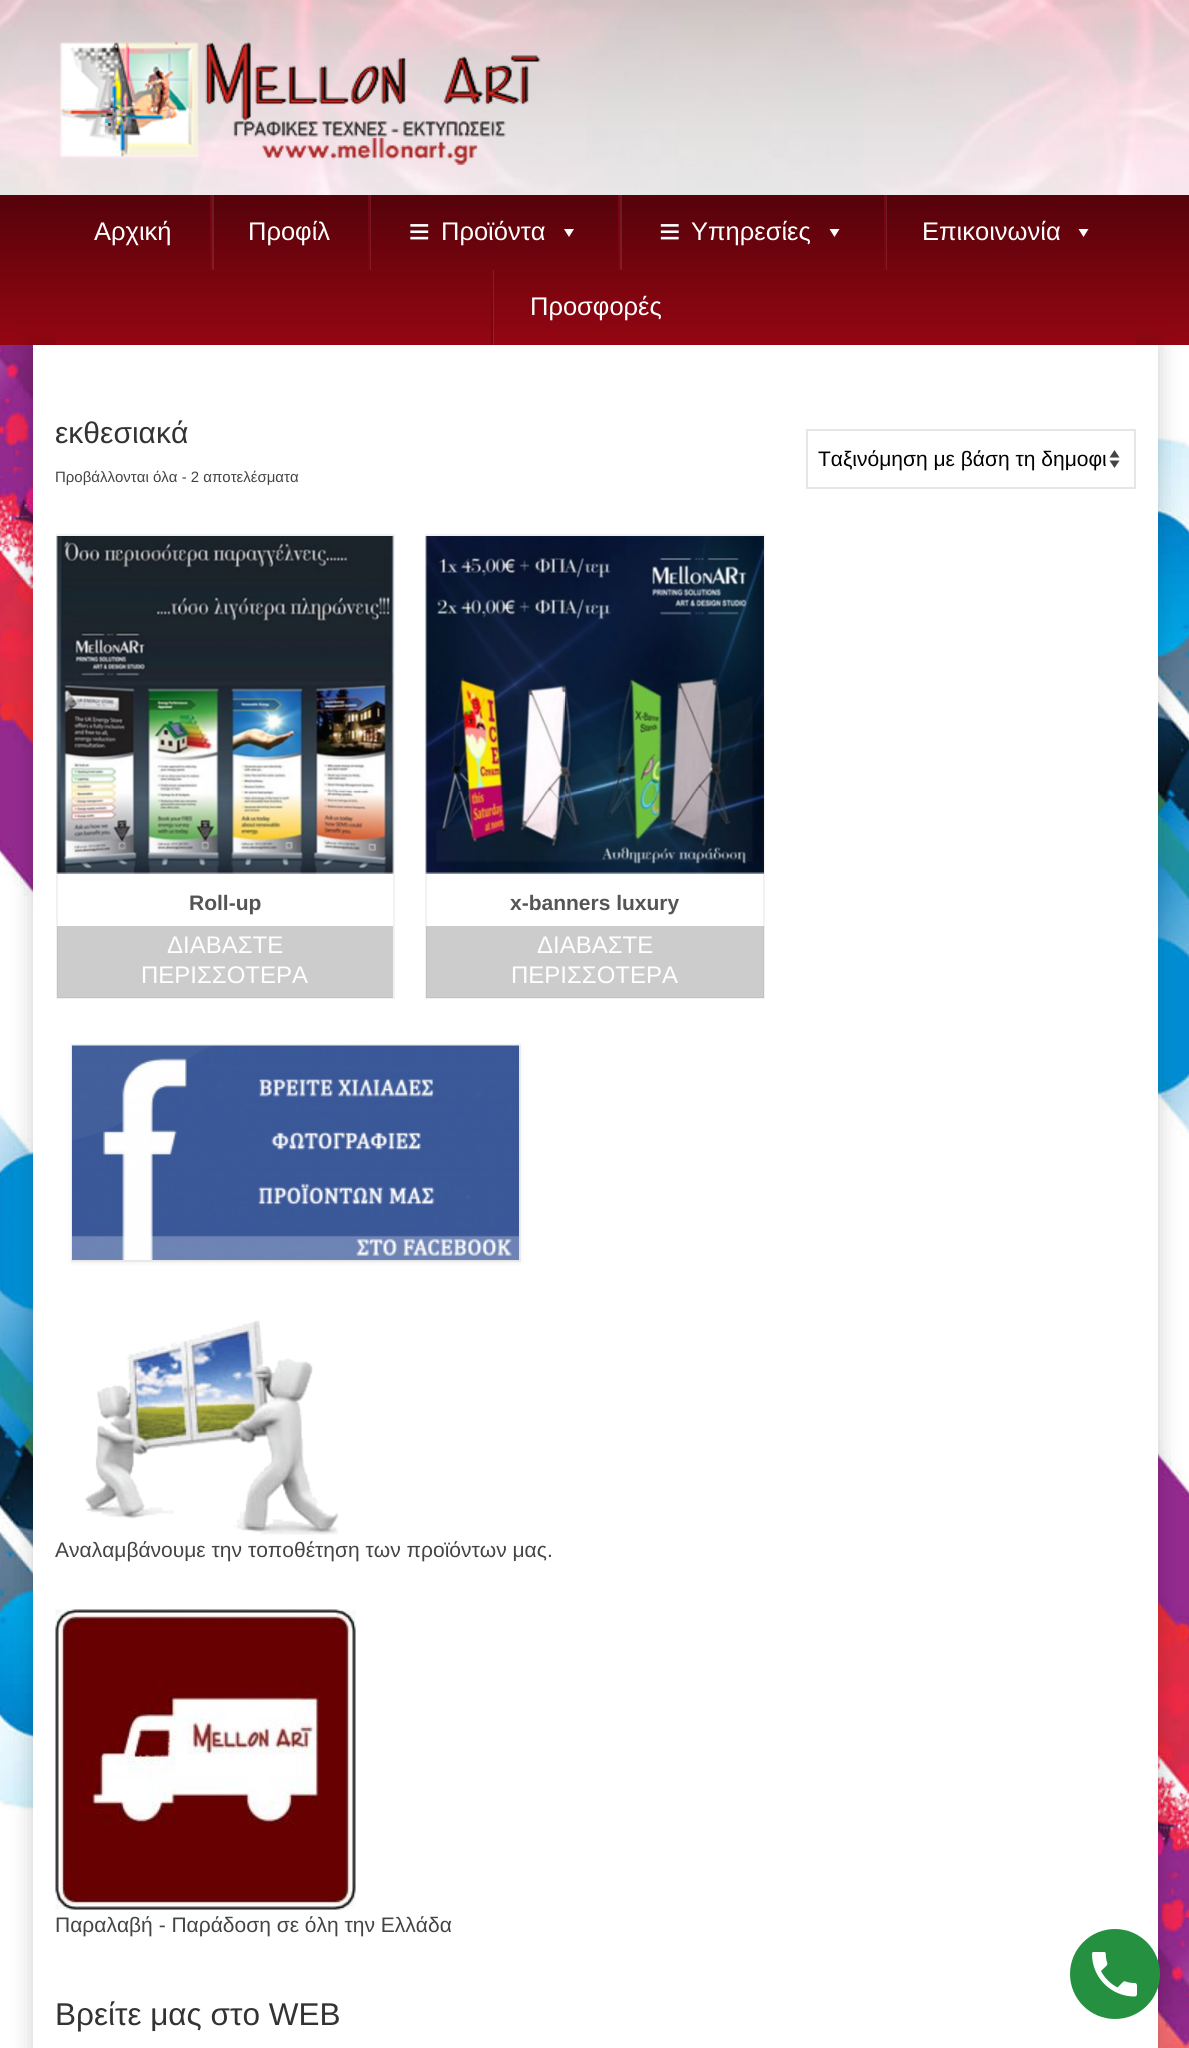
#include <cairo.h>
#include <math.h>
#include <stddef.h>


static void round_rect(cairo_t *cr, double x, double y, double w, double h, double r) {
    cairo_new_sub_path(cr);
    cairo_arc(cr, x + w - r, y + h - r, r, 0, M_PI / 2);
    cairo_arc(cr, x + r, y + h - r, r, M_PI / 2, M_PI);
    cairo_arc(cr, x + r, y + r, r, M_PI, 1.5 * M_PI);
    cairo_arc(cr, x + w - r, y + r, r, 1.5 * M_PI, 2 * M_PI);
    cairo_close_path(cr);
}

static void shadow(cairo_t *cr, double x, double y, double w, double h, double r, double blur, double alpha) {
    cairo_push_group_with_content(cr, CAIRO_CONTENT_ALPHA);
    cairo_set_operator(cr, CAIRO_OPERATOR_SOURCE);
    for (int i = 15; i >= -15 && fmin(w, h) + blur * i / 3 > 0; i -= 2) {
        double e = blur * i / 6;
        cairo_set_source_rgba(cr, 0, 0, 0, alpha * erfc((i - 1) / 8.5) / 2);
        round_rect(cr, x - e, y - e, w + 2 * e, h + 2 * e, fmax(0, fmin(r + e + blur * .6, fmin(w, h) / 2 + e)));
        cairo_fill(cr);
    }
    cairo_pattern_t *soft = cairo_pop_group(cr);
    cairo_mask(cr, soft);
    cairo_pattern_destroy(soft);
}

static void picture(cairo_t *cr, const char *path, double x, double y, double w, double h) {
    cairo_surface_t *image = cairo_image_surface_create_from_png(path);
    cairo_save(cr);
    cairo_set_source_surface(cr, image, x, y);
    cairo_rectangle(cr, x, y, w, h);
    cairo_fill(cr);
    cairo_restore(cr);
    cairo_surface_destroy(image);
}

int main(void) {
    cairo_surface_t *surface = cairo_image_surface_create(CAIRO_FORMAT_RGB24, 1189, 2048);
    cairo_t *cr = cairo_create(surface);
    cairo_font_options_t *options = cairo_font_options_create();
    cairo_font_options_set_hint_metrics(options, CAIRO_HINT_METRICS_OFF);
    cairo_font_options_set_hint_style(options, CAIRO_HINT_STYLE_NONE);
    cairo_set_font_options(cr, options);
    cairo_set_miter_limit(cr, 4);
    cairo_pattern_t *gradient;
    cairo_set_source_rgb(cr, 1, 1, 1);
    cairo_paint(cr);
    picture(cr, "img1.png", 0, 0, 1189, 195);
    picture(cr, "img2.png", 60, 41, 481, 124);
    gradient = cairo_pattern_create_linear(595, 195, 595, 345);
    cairo_pattern_add_color_stop_rgba(gradient, 0, 0.333, 0.008, 0.039, 1);
    cairo_pattern_add_color_stop_rgba(gradient, 1, 0.584, 0.024, 0.071, 1);
    cairo_set_source(cr, gradient);
    cairo_pattern_destroy(gradient);
    cairo_rectangle(cr, 0, 195, 1189, 150);
    cairo_fill(cr);
    picture(cr, "img10.png", 0, 345, 1189, 1703);
    cairo_set_source_rgb(cr, 0, 0, 0);
    shadow(cr, 33, 345, 1125, 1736, 0, 11, 0.2);
    gradient = cairo_pattern_create_linear(596, 195, 596, 345);
    cairo_pattern_add_color_stop_rgba(gradient, 0, 0.333, 0.008, 0.039, 1);
    cairo_pattern_add_color_stop_rgba(gradient, 1, 0.584, 0.024, 0.071, 1);
    cairo_set_source(cr, gradient);
    cairo_pattern_destroy(gradient);
    cairo_rectangle(cr, 56, 330, 1080, 15);
    cairo_fill(cr);
    cairo_select_font_face(cr, "Liberation Sans", CAIRO_FONT_SLANT_NORMAL, CAIRO_FONT_WEIGHT_NORMAL);
    cairo_set_font_size(cr, 25.5);
    cairo_set_source_rgb(cr, 1, 1, 1);
    cairo_move_to(cr, 94, 240);
    cairo_show_text(cr, "Αρχική");
    cairo_set_source_rgba(cr, 1, 1, 1, 0.1);
    cairo_rectangle(cr, 212, 195, 2, 75);
    cairo_fill(cr);
    cairo_set_source_rgb(cr, 0.478, 0.016, 0.059);
    cairo_rectangle(cr, 210, 195, 2, 75);
    cairo_fill(cr);
    cairo_set_source_rgb(cr, 1, 1, 1);
    cairo_move_to(cr, 248, 240);
    cairo_show_text(cr, "Προφίλ");
    cairo_set_source_rgba(cr, 1, 1, 1, 0.1);
    cairo_rectangle(cr, 370, 195, 1, 75);
    cairo_fill(cr);
    cairo_set_source_rgb(cr, 0.478, 0.016, 0.059);
    cairo_rectangle(cr, 368, 195, 2, 75);
    cairo_fill(cr);
    picture(cr, "img3.png", 410, 224, 19, 16);
    cairo_set_source_rgb(cr, 1, 1, 1);
    cairo_move_to(cr, 441, 240);
    cairo_show_text(cr, "Προϊόντα");
    cairo_new_path(cr);
    cairo_move_to(cr, 574, 229);
    cairo_line_to(cr, 569, 237);
    cairo_line_to(cr, 564, 229);
    cairo_close_path(cr);
    cairo_fill(cr);
    cairo_set_source_rgba(cr, 1, 1, 1, 0.1);
    cairo_rectangle(cr, 620, 195, 2, 75);
    cairo_fill(cr);
    cairo_set_source_rgb(cr, 0.478, 0.016, 0.059);
    cairo_rectangle(cr, 618, 195, 2, 75);
    cairo_fill(cr);
    picture(cr, "img4.png", 660, 224, 19, 16);
    cairo_set_source_rgb(cr, 1, 1, 1);
    cairo_move_to(cr, 691, 240);
    cairo_show_text(cr, "Υπηρεσίες");
    cairo_new_path(cr);
    cairo_move_to(cr, 839.5, 229);
    cairo_line_to(cr, 834.5, 237);
    cairo_line_to(cr, 829.5, 229);
    cairo_close_path(cr);
    cairo_fill(cr);
    cairo_set_source_rgba(cr, 1, 1, 1, 0.1);
    cairo_rectangle(cr, 886, 195, 1, 75);
    cairo_fill(cr);
    cairo_set_source_rgb(cr, 0.478, 0.016, 0.059);
    cairo_rectangle(cr, 884, 195, 2, 75);
    cairo_fill(cr);
    cairo_set_source_rgb(cr, 1, 1, 1);
    cairo_move_to(cr, 922, 240);
    cairo_show_text(cr, "Επικοινωνία");
    cairo_new_path(cr);
    cairo_move_to(cr, 1088.5, 229);
    cairo_line_to(cr, 1083.5, 237);
    cairo_line_to(cr, 1078.5, 229);
    cairo_close_path(cr);
    cairo_fill(cr);
    cairo_set_source_rgba(cr, 1, 1, 1, 0.1);
    cairo_rectangle(cr, 493, 270, 1, 75);
    cairo_fill(cr);
    cairo_set_source_rgb(cr, 0.478, 0.016, 0.059);
    cairo_rectangle(cr, 491, 270, 2, 75);
    cairo_fill(cr);
    cairo_set_source_rgb(cr, 1, 1, 1);
    cairo_move_to(cr, 530, 315);
    cairo_show_text(cr, "Προσφορές");
    cairo_rectangle(cr, 33, 345, 1125, 1703);
    cairo_fill(cr);
    cairo_set_font_size(cr, 30);
    cairo_set_source_rgb(cr, 0.2, 0.2, 0.2);
    cairo_move_to(cr, 55, 443);
    cairo_show_text(cr, "εκθεσιακά");
    cairo_set_source_rgb(cr, 0.267, 0.267, 0.267);
    cairo_new_path(cr);
    cairo_move_to(cr, 1109.5, 457.5);
    cairo_line_to(cr, 1114.5, 450);
    cairo_line_to(cr, 1119.5, 457.5);
    cairo_close_path(cr);
    cairo_move_to(cr, 1119.5, 460.5);
    cairo_line_to(cr, 1114.5, 468);
    cairo_line_to(cr, 1109.5, 460.5);
    cairo_close_path(cr);
    cairo_fill(cr);
    cairo_rectangle(cr, 807, 430, 328, 58);
    cairo_set_source_rgb(cr, 0.902, 0.902, 0.902);
    cairo_stroke(cr);
    cairo_set_font_size(cr, 21);
    cairo_set_source_rgb(cr, 0, 0, 0);
    cairo_move_to(cr, 818, 466);
    cairo_show_text(cr, "Ταξινόμηση με βάση τη δημοφι");
    cairo_set_font_size(cr, 15);
    cairo_set_source_rgb(cr, 0.267, 0.267, 0.267);
    cairo_move_to(cr, 55, 482);
    cairo_show_text(cr, "Προβάλλονται όλα - 2 αποτελέσματα");
    cairo_rectangle(cr, 57, 535, 337, 463);
    cairo_set_source_rgb(cr, 0.949, 0.949, 0.949);
    cairo_stroke(cr);
    picture(cr, "img5.png", 56, 536, 338, 338);
    cairo_select_font_face(cr, "Liberation Sans", CAIRO_FONT_SLANT_NORMAL, CAIRO_FONT_WEIGHT_BOLD);
    cairo_set_font_size(cr, 21);
    cairo_set_source_rgb(cr, 0.333, 0.333, 0.333);
    cairo_move_to(cr, 189, 910);
    cairo_show_text(cr, "Roll-up");
    cairo_set_source_rgba(cr, 0, 0, 0, 0.2);
    cairo_rectangle(cr, 57, 926, 336, 72);
    cairo_fill(cr);
    cairo_select_font_face(cr, "Liberation Sans", CAIRO_FONT_SLANT_NORMAL, CAIRO_FONT_WEIGHT_NORMAL);
    cairo_set_font_size(cr, 24);
    cairo_set_source_rgb(cr, 1, 1, 1);
    cairo_move_to(cr, 167, 953);
    cairo_show_text(cr, "ΔΙΑΒΑΣΤΕ");
    cairo_move_to(cr, 141, 983);
    cairo_show_text(cr, "ΠΕΡΙΣΣΟΤΕΡΑ");
    cairo_rectangle(cr, 426, 535, 338, 463);
    cairo_set_source_rgb(cr, 0.949, 0.949, 0.949);
    cairo_stroke(cr);
    picture(cr, "img6.png", 425, 536, 339, 338);
    cairo_select_font_face(cr, "Liberation Sans", CAIRO_FONT_SLANT_NORMAL, CAIRO_FONT_WEIGHT_BOLD);
    cairo_set_font_size(cr, 21);
    cairo_set_source_rgb(cr, 0.333, 0.333, 0.333);
    cairo_move_to(cr, 510, 910);
    cairo_show_text(cr, "x-banners luxury");
    cairo_set_source_rgba(cr, 0, 0, 0, 0.2);
    cairo_rectangle(cr, 426, 926, 338, 72);
    cairo_fill(cr);
    cairo_select_font_face(cr, "Liberation Sans", CAIRO_FONT_SLANT_NORMAL, CAIRO_FONT_WEIGHT_NORMAL);
    cairo_set_font_size(cr, 24);
    cairo_set_source_rgb(cr, 1, 1, 1);
    cairo_move_to(cr, 537, 953);
    cairo_show_text(cr, "ΔΙΑΒΑΣΤΕ");
    cairo_move_to(cr, 511, 983);
    cairo_show_text(cr, "ΠΕΡΙΣΣΟΤΕΡΑ");
    cairo_set_source_rgb(cr, 0, 0, 0);
    shadow(cr, 71, 1046, 450, 217, 0, 2, 0.06);
    cairo_rectangle(cr, 72, 1045, 448, 216);
    cairo_set_source_rgba(cr, 0, 0, 0, 0.05);
    cairo_stroke(cr);
    picture(cr, "img7.png", 72, 1045, 447, 215);
    picture(cr, "img8.png", 85, 1320, 254, 215);
    cairo_set_font_size(cr, 21);
    cairo_set_source_rgb(cr, 0.267, 0.267, 0.267);
    cairo_move_to(cr, 55, 1557);
    cairo_show_text(cr, "Αναλαμβάνουμε την τοποθέτηση των προϊόντων μας.");
    picture(cr, "img9.png", 55, 1609, 301, 301);
    cairo_move_to(cr, 55, 1932);
    cairo_show_text(cr, "Παραλαβή - Παράδοση σε όλη την Ελλάδα");
    cairo_set_font_size(cr, 31.5);
    cairo_set_source_rgb(cr, 0.2, 0.2, 0.2);
    cairo_move_to(cr, 55, 2025);
    cairo_show_text(cr, "Βρείτε μας στο WEB");
    cairo_set_source_rgb(cr, 0.149, 0.565, 0.255);
    cairo_new_path(cr);
    cairo_arc(cr, 1115, 1974, 45, 0, 2 * M_PI);
    cairo_fill(cr);
    picture(cr, "img11.png", 1092, 1952, 45, 45);
    cairo_surface_write_to_png(surface, "page.png");
    cairo_font_options_destroy(options);
    cairo_destroy(cr);
    cairo_surface_destroy(surface);
    return 0;
}
